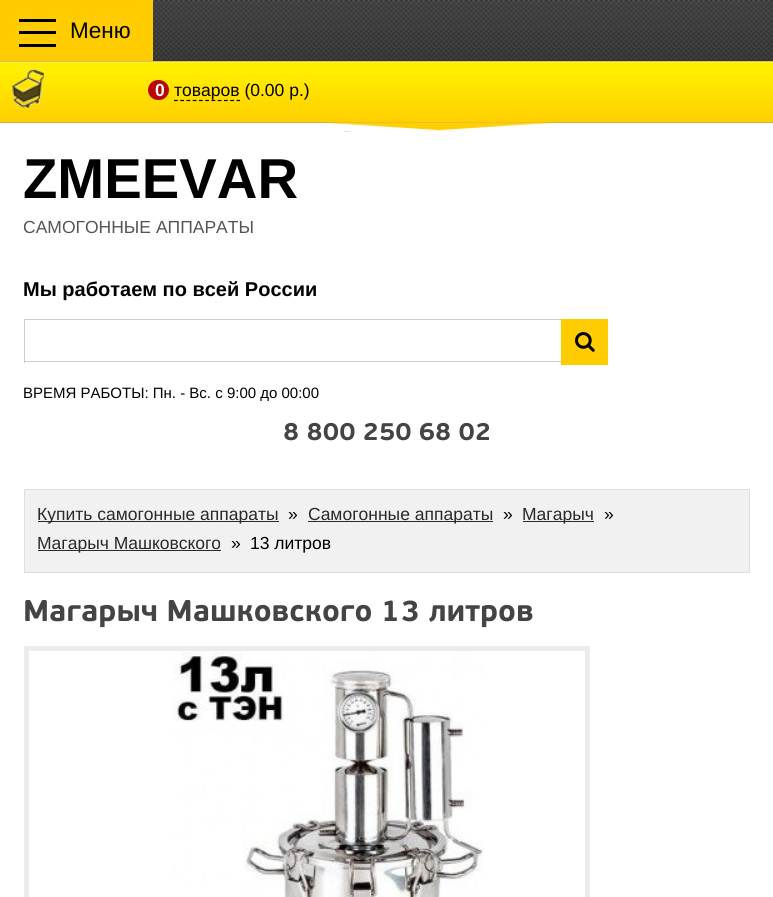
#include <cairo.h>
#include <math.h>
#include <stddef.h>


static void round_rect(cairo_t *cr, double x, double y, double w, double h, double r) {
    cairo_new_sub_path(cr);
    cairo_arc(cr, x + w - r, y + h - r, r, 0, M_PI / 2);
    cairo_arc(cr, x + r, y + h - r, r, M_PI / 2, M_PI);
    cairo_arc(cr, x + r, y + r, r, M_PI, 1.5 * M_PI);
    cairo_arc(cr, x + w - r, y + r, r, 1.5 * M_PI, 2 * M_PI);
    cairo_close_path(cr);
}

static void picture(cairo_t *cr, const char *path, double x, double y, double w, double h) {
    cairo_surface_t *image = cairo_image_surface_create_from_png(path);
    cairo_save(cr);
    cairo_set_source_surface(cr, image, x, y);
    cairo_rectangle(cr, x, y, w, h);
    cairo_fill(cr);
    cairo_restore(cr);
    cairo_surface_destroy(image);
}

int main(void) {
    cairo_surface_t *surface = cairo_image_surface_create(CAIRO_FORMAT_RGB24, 773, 897);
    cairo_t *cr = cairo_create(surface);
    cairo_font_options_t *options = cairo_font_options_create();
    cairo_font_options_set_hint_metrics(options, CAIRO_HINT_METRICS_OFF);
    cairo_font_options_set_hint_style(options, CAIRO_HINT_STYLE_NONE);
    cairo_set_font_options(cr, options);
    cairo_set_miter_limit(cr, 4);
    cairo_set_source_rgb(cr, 1, 1, 1);
    cairo_paint(cr);
    picture(cr, "img1.png", 0, 0, 773, 123);
    cairo_set_source_rgb(cr, 1, 0.8, 0);
    cairo_rectangle(cr, 0, 0, 153, 61);
    cairo_fill(cr);
    cairo_set_source_rgb(cr, 0, 0, 0);
    cairo_rectangle(cr, 19, 31, 37, 3);
    cairo_fill(cr);
    cairo_rectangle(cr, 19, 19, 37, 3);
    cairo_fill(cr);
    cairo_rectangle(cr, 19, 44, 37, 3);
    cairo_fill(cr);
    cairo_select_font_face(cr, "Liberation Sans", CAIRO_FONT_SLANT_NORMAL, CAIRO_FONT_WEIGHT_NORMAL);
    cairo_set_font_size(cr, 22.5);
    cairo_move_to(cr, 70, 38);
    cairo_show_text(cr, "Меню");
    picture(cr, "img2.png", 0, 61, 773, 62);
    picture(cr, "img3.png", 10, 68, 34, 40);
    cairo_set_source_rgb(cr, 0.725, 0.024, 0.02);
    round_rect(cr, 148, 80, 21, 20, 10);
    cairo_fill(cr);
    cairo_select_font_face(cr, "Liberation Sans", CAIRO_FONT_SLANT_NORMAL, CAIRO_FONT_WEIGHT_BOLD);
    cairo_set_font_size(cr, 17.5);
    cairo_set_source_rgb(cr, 1, 1, 1);
    cairo_move_to(cr, 155, 96);
    cairo_show_text(cr, "0");
    cairo_new_path(cr);
    cairo_move_to(cr, 174, 100.5);
    cairo_line_to(cr, 240, 100.5);
    cairo_set_source_rgb(cr, 0, 0, 0);
    cairo_set_line_width(cr, 1.2);
    cairo_set_dash(cr, (double[]){3.75, 2.5}, 2, 0);
    cairo_stroke(cr);
    cairo_select_font_face(cr, "Liberation Sans", CAIRO_FONT_SLANT_NORMAL, CAIRO_FONT_WEIGHT_NORMAL);
    cairo_move_to(cr, 174, 96);
    cairo_show_text(cr, "товаров (0.00 р.)");
    picture(cr, "img4.png", 326, 122, 227, 10);
    cairo_select_font_face(cr, "Liberation Sans", CAIRO_FONT_SLANT_NORMAL, CAIRO_FONT_WEIGHT_BOLD);
    cairo_set_font_size(cr, 56.25);
    cairo_move_to(cr, 23, 198);
    cairo_show_text(cr, "ZMEEVAR");
    cairo_select_font_face(cr, "Liberation Sans", CAIRO_FONT_SLANT_NORMAL, CAIRO_FONT_WEIGHT_NORMAL);
    cairo_set_font_size(cr, 17.5);
    cairo_set_source_rgb(cr, 0.333, 0.333, 0.333);
    cairo_move_to(cr, 23, 233);
    cairo_show_text(cr, "САМОГОННЫЕ АППАРАТЫ");
    cairo_select_font_face(cr, "Liberation Sans", CAIRO_FONT_SLANT_NORMAL, CAIRO_FONT_WEIGHT_BOLD);
    cairo_set_font_size(cr, 20);
    cairo_set_source_rgb(cr, 0, 0, 0);
    cairo_move_to(cr, 23, 296);
    cairo_show_text(cr, "Мы работаем по всей России");
    cairo_set_source_rgb(cr, 0.8, 0.8, 0.8);
    cairo_rectangle(cr, 24, 319, 537, 1);
    cairo_fill(cr);
    cairo_rectangle(cr, 24, 361, 537, 1);
    cairo_fill(cr);
    cairo_rectangle(cr, 24, 319, 1, 44);
    cairo_fill(cr);
    cairo_set_source_rgb(cr, 1, 0.8, 0);
    cairo_rectangle(cr, 561, 319, 47, 46);
    cairo_fill(cr);
    picture(cr, "img5.png", 575, 332, 20, 20);
    cairo_select_font_face(cr, "Liberation Sans", CAIRO_FONT_SLANT_NORMAL, CAIRO_FONT_WEIGHT_NORMAL);
    cairo_set_font_size(cr, 15);
    cairo_set_source_rgb(cr, 0, 0, 0);
    cairo_move_to(cr, 23, 398);
    cairo_show_text(cr, "ВРЕМЯ РАБОТЫ: Пн. - Вс. с 9:00 до 00:00");
    cairo_select_font_face(cr, "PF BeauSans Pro", CAIRO_FONT_SLANT_NORMAL, CAIRO_FONT_WEIGHT_BOLD);
    cairo_set_font_size(cr, 25);
    cairo_set_source_rgb(cr, 0.267, 0.267, 0.267);
    cairo_move_to(cr, 283, 440);
    cairo_show_text(cr, "8 800 250 68 02");
    cairo_set_source_rgb(cr, 0.945, 0.945, 0.945);
    cairo_rectangle(cr, 24.5, 489.5, 725, 83);
    cairo_fill_preserve(cr);
    cairo_set_source_rgb(cr, 0.878, 0.878, 0.878);
    cairo_set_line_width(cr, 1);
    cairo_set_dash(cr, NULL, 0, 0);
    cairo_stroke(cr);
    cairo_set_source_rgb(cr, 0.161, 0.161, 0.161);
    cairo_rectangle(cr, 38, 521, 241, 1);
    cairo_fill(cr);
    cairo_select_font_face(cr, "Liberation Sans", CAIRO_FONT_SLANT_NORMAL, CAIRO_FONT_WEIGHT_NORMAL);
    cairo_set_font_size(cr, 17.5);
    cairo_move_to(cr, 37, 520);
    cairo_show_text(cr, "Купить самогонные аппараты");
    cairo_set_source_rgb(cr, 0, 0, 0);
    cairo_move_to(cr, 288, 520);
    cairo_show_text(cr, "»");
    cairo_set_source_rgb(cr, 0.161, 0.161, 0.161);
    cairo_rectangle(cr, 308, 521, 185, 1);
    cairo_fill(cr);
    cairo_move_to(cr, 308, 520);
    cairo_show_text(cr, "Самогонные аппараты");
    cairo_set_source_rgb(cr, 0, 0, 0);
    cairo_move_to(cr, 503, 520);
    cairo_show_text(cr, "»");
    cairo_set_source_rgb(cr, 0.161, 0.161, 0.161);
    cairo_rectangle(cr, 523, 521, 71, 1);
    cairo_fill(cr);
    cairo_move_to(cr, 522, 520);
    cairo_show_text(cr, "Магарыч");
    cairo_set_source_rgb(cr, 0, 0, 0);
    cairo_move_to(cr, 604, 520);
    cairo_show_text(cr, "»");
    cairo_set_source_rgb(cr, 0.161, 0.161, 0.161);
    cairo_rectangle(cr, 38, 550, 183, 1);
    cairo_fill(cr);
    cairo_move_to(cr, 37, 549);
    cairo_show_text(cr, "Магарыч Машковского");
    cairo_set_source_rgb(cr, 0, 0, 0);
    cairo_move_to(cr, 231, 549);
    cairo_show_text(cr, "»");
    cairo_move_to(cr, 250, 549);
    cairo_show_text(cr, "13 литров");
    cairo_select_font_face(cr, "PF BeauSans Pro", CAIRO_FONT_SLANT_NORMAL, CAIRO_FONT_WEIGHT_BOLD);
    cairo_set_font_size(cr, 30);
    cairo_set_source_rgb(cr, 0.267, 0.267, 0.267);
    cairo_move_to(cr, 23, 621);
    cairo_show_text(cr, "Магарыч Машковского 13 литров");
    cairo_rectangle(cr, 26.5, 648.5, 561, 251);
    cairo_set_source_rgb(cr, 0.922, 0.922, 0.922);
    cairo_set_line_width(cr, 5);
    cairo_stroke(cr);
    picture(cr, "img6.png", 172, 651, 312, 246);
    cairo_surface_write_to_png(surface, "page.png");
    cairo_font_options_destroy(options);
    cairo_destroy(cr);
    cairo_surface_destroy(surface);
    return 0;
}
